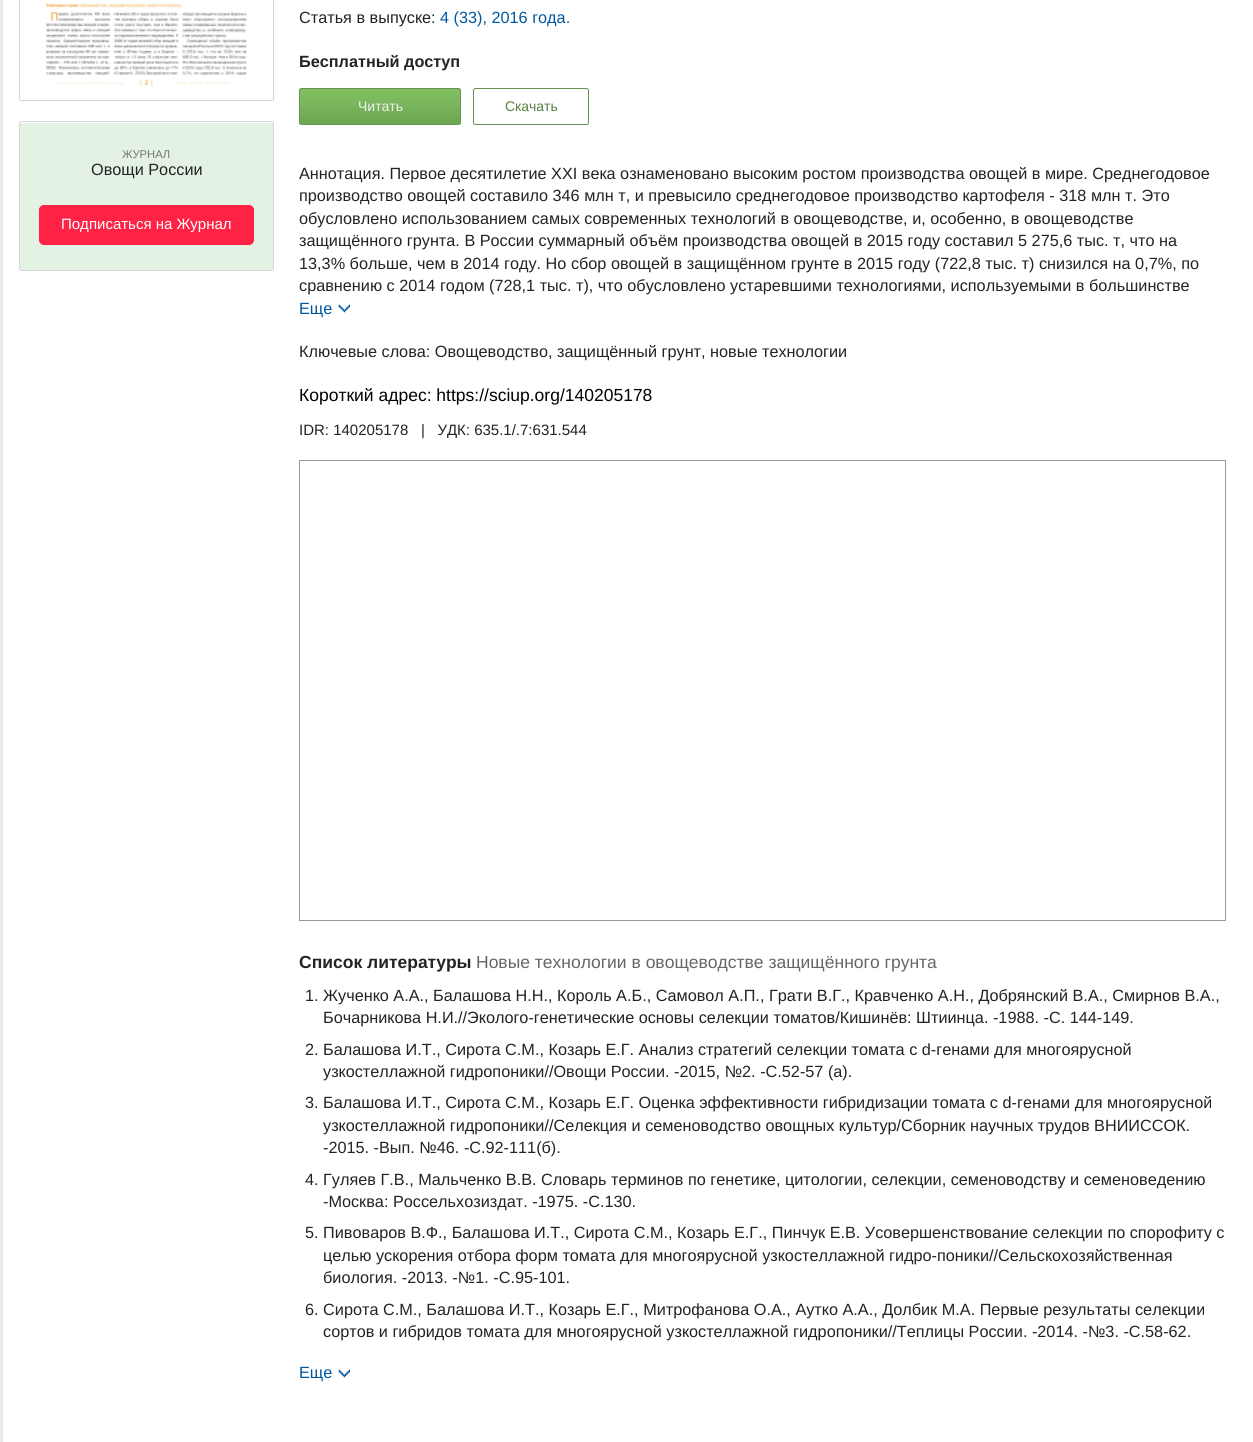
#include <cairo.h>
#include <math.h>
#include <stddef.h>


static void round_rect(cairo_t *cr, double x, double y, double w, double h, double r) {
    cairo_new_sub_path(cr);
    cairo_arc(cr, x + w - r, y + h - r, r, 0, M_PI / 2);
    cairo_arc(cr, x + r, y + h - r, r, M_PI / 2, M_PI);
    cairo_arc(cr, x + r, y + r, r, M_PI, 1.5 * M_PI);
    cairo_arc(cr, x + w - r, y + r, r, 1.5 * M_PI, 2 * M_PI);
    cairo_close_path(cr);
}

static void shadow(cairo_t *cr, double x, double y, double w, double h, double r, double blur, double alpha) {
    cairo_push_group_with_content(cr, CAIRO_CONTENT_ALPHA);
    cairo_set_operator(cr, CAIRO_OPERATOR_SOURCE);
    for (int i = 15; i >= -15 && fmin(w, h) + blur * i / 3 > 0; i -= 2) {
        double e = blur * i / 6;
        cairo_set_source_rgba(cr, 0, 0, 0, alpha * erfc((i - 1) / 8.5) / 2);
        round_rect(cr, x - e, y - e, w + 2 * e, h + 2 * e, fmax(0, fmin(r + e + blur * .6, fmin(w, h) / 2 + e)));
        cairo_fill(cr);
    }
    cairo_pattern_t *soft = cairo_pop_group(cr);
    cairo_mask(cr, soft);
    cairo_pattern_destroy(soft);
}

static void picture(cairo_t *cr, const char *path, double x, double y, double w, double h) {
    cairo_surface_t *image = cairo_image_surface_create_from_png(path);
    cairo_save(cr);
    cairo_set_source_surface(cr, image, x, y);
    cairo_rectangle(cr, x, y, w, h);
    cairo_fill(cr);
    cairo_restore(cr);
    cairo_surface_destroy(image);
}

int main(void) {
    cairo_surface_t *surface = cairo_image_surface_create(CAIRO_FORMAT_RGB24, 1253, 1442);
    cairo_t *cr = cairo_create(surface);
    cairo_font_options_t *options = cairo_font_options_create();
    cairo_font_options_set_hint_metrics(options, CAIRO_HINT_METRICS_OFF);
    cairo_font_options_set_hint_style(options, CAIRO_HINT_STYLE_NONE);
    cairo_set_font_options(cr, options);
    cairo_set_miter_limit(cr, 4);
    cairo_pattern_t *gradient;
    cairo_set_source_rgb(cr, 0.941, 0.941, 0.941);
    cairo_paint(cr);
    cairo_set_source_rgb(cr, 0.831, 0.831, 0.831);
    shadow(cr, 3, -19, 1250, 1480, 10, 3, 1);
    cairo_set_source_rgb(cr, 1, 1, 1);
    cairo_rectangle(cr, 3, 0, 1250, 1442);
    cairo_fill(cr);
    round_rect(cr, 19.5, -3.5, 254, 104, 2);
    cairo_set_source_rgb(cr, 0.835, 0.835, 0.835);
    cairo_set_line_width(cr, 1);
    cairo_stroke(cr);
    picture(cr, "img1.png", 20, 3, 227, 97);
    round_rect(cr, 19.5, 121.5, 254, 149, 2);
    cairo_stroke(cr);
    cairo_set_source_rgb(cr, 0.89, 0.949, 0.89);
    round_rect(cr, 20, 123, 253, 147, 1);
    cairo_fill(cr);
    cairo_select_font_face(cr, "Liberation Sans", CAIRO_FONT_SLANT_NORMAL, CAIRO_FONT_WEIGHT_NORMAL);
    cairo_set_font_size(cr, 11.25);
    cairo_set_source_rgb(cr, 0.467, 0.467, 0.467);
    cairo_move_to(cr, 122, 158);
    cairo_show_text(cr, "ЖУРНАЛ");
    cairo_set_font_size(cr, 16.25);
    cairo_set_source_rgb(cr, 0.137, 0.137, 0.137);
    cairo_move_to(cr, 91, 175);
    cairo_show_text(cr, "Овощи России");
    cairo_set_source_rgb(cr, 0.996, 0.133, 0.271);
    round_rect(cr, 39.5, 205.5, 214, 39, 4.5);
    cairo_fill_preserve(cr);
    cairo_stroke(cr);
    cairo_set_font_size(cr, 15);
    cairo_set_source_rgb(cr, 1, 1, 1);
    cairo_move_to(cr, 61, 229);
    cairo_show_text(cr, "Подписаться на Журнал");
    cairo_set_font_size(cr, 16.25);
    cairo_set_source_rgb(cr, 0.137, 0.137, 0.137);
    cairo_move_to(cr, 299, 23);
    cairo_show_text(cr, "Статья в выпуске:");
    cairo_set_source_rgb(cr, 0, 0.337, 0.624);
    cairo_move_to(cr, 440, 23);
    cairo_show_text(cr, "4 (33), 2016 года.");
    cairo_select_font_face(cr, "Liberation Sans", CAIRO_FONT_SLANT_NORMAL, CAIRO_FONT_WEIGHT_BOLD);
    cairo_set_source_rgb(cr, 0.137, 0.137, 0.137);
    cairo_move_to(cr, 299, 67);
    cairo_show_text(cr, "Бесплатный доступ");
    cairo_save(cr);
    round_rect(cr, 299, 88, 162, 37, 2.5);
    cairo_clip(cr);
    gradient = cairo_pattern_create_linear(380, 89, 380, 124);
    cairo_pattern_add_color_stop_rgba(gradient, 0, 0.506, 0.757, 0.384, 1);
    cairo_pattern_add_color_stop_rgba(gradient, 1, 0.431, 0.651, 0.329, 1);
    cairo_set_source(cr, gradient);
    cairo_pattern_destroy(gradient);
    cairo_rectangle(cr, 299, 89, 162, 35);
    cairo_fill(cr);
    cairo_restore(cr);
    round_rect(cr, 299.5, 88.5, 161, 36, 2);
    cairo_set_source_rgb(cr, 0.4, 0.573, 0.322);
    cairo_stroke(cr);
    cairo_select_font_face(cr, "Liberation Sans", CAIRO_FONT_SLANT_NORMAL, CAIRO_FONT_WEIGHT_NORMAL);
    cairo_set_font_size(cr, 14);
    cairo_set_source_rgb(cr, 0.941, 0.941, 0.941);
    cairo_move_to(cr, 358, 111);
    cairo_show_text(cr, "Читать");
    round_rect(cr, 473.5, 88.5, 115, 36, 2);
    cairo_set_source_rgb(cr, 0.4, 0.573, 0.322);
    cairo_stroke(cr);
    cairo_set_source_rgb(cr, 0.345, 0.506, 0.271);
    cairo_move_to(cr, 505, 111);
    cairo_show_text(cr, "Скачать");
    cairo_set_font_size(cr, 16.25);
    cairo_set_source_rgb(cr, 0.137, 0.137, 0.137);
    cairo_move_to(cr, 299, 179);
    cairo_show_text(cr, "Аннотация. Первое десятилетие XXI века ознаменовано высоким ростом производства овощей в мире. Среднегодовое");
    cairo_move_to(cr, 299, 201);
    cairo_show_text(cr, "производство овощей составило 346 млн т, и превысило среднегодовое производство картофеля - 318 млн т. Это");
    cairo_move_to(cr, 299, 224);
    cairo_show_text(cr, "обусловлено использованием самых современных технологий в овощеводстве, и, особенно, в овощеводстве");
    cairo_move_to(cr, 299, 246);
    cairo_show_text(cr, "защищённого грунта. В России суммарный объём производства овощей в 2015 году составил 5 275,6 тыс. т, что на");
    cairo_move_to(cr, 299, 269);
    cairo_show_text(cr, "13,3% больше, чем в 2014 году. Но сбор овощей в защищённом грунте в 2015 году (722,8 тыс. т) снизился на 0,7%, по");
    cairo_move_to(cr, 299, 291);
    cairo_show_text(cr, "сравнению с 2014 годом (728,1 тыс. т), что обусловлено устаревшими технологиями, используемыми в большинстве");
    cairo_set_source_rgb(cr, 0, 0.337, 0.624);
    cairo_move_to(cr, 299, 314);
    cairo_show_text(cr, "Еще");
    picture(cr, "img2.png", 338, 304, 12, 9);
    cairo_set_source_rgb(cr, 0.137, 0.137, 0.137);
    cairo_move_to(cr, 299, 357);
    cairo_show_text(cr, "Ключевые слова: Овощеводство, защищённый грунт, новые технологии");
    cairo_set_font_size(cr, 17.5);
    cairo_set_source_rgb(cr, 0, 0, 0);
    cairo_move_to(cr, 299, 401);
    cairo_show_text(cr, "Короткий адрес: https://sciup.org/140205178");
    cairo_set_font_size(cr, 15);
    cairo_set_source_rgb(cr, 0.137, 0.137, 0.137);
    cairo_move_to(cr, 299, 435);
    cairo_show_text(cr, "IDR: 140205178");
    cairo_move_to(cr, 421, 435);
    cairo_show_text(cr, "|   УДК: 635.1/.7:631.544");
    cairo_rectangle(cr, 299.5, 460.5, 926, 460);
    cairo_set_source_rgb(cr, 0.6, 0.6, 0.6);
    cairo_stroke(cr);
    cairo_select_font_face(cr, "Liberation Sans", CAIRO_FONT_SLANT_NORMAL, CAIRO_FONT_WEIGHT_BOLD);
    cairo_set_font_size(cr, 17.5);
    cairo_set_source_rgb(cr, 0.137, 0.137, 0.137);
    cairo_move_to(cr, 299, 968);
    cairo_show_text(cr, "Список литературы");
    cairo_select_font_face(cr, "Liberation Sans", CAIRO_FONT_SLANT_NORMAL, CAIRO_FONT_WEIGHT_NORMAL);
    cairo_set_source_rgb(cr, 0.4, 0.4, 0.4);
    cairo_move_to(cr, 476, 968);
    cairo_show_text(cr, "Новые технологии в овощеводстве защищённого грунта");
    cairo_set_font_size(cr, 16.25);
    cairo_set_source_rgb(cr, 0.137, 0.137, 0.137);
    cairo_move_to(cr, 305, 1001);
    cairo_show_text(cr, "1. Жученко А.А., Балашова Н.Н., Король А.Б., Самовол А.П., Грати В.Г., Кравченко А.Н., Добрянский В.А., Смирнов В.А.,");
    cairo_move_to(cr, 323, 1023);
    cairo_show_text(cr, "Бочарникова Н.И.//Эколого-генетические основы селекции томатов/Кишинёв: Штиинца. -1988. -С. 144-149.");
    cairo_move_to(cr, 305, 1055);
    cairo_show_text(cr, "2. Балашова И.Т., Сирота С.М., Козарь Е.Г. Анализ стратегий селекции томата с d-генами для многоярусной");
    cairo_move_to(cr, 323, 1077);
    cairo_show_text(cr, "узкостеллажной гидропоники//Овощи России. -2015, №2. -С.52-57 (а).");
    cairo_move_to(cr, 305, 1108);
    cairo_show_text(cr, "3. Балашова И.Т., Сирота С.М., Козарь Е.Г. Оценка эффективности гибридизации томата с d-генами для многоярусной");
    cairo_move_to(cr, 323, 1131);
    cairo_show_text(cr, "узкостеллажной гидропоники//Селекция и семеноводство овощных культур/Сборник научных трудов ВНИИССОК.");
    cairo_move_to(cr, 323, 1153);
    cairo_show_text(cr, "-2015. -Вып. №46. -С.92-111(б).");
    cairo_move_to(cr, 305, 1185);
    cairo_show_text(cr, "4. Гуляев Г.В., Мальченко В.В. Словарь терминов по генетике, цитологии, селекции, семеноводству и семеноведению");
    cairo_move_to(cr, 323, 1207);
    cairo_show_text(cr, "-Москва: Россельхозиздат. -1975. -С.130.");
    cairo_move_to(cr, 305, 1238);
    cairo_show_text(cr, "5. Пивоваров В.Ф., Балашова И.Т., Сирота С.М., Козарь Е.Г., Пинчук Е.В. Усовершенствование селекции по спорофиту с");
    cairo_move_to(cr, 323, 1261);
    cairo_show_text(cr, "целью ускорения отбора форм томата для многоярусной узкостеллажной гидро-поники//Сельскохозяйственная");
    cairo_move_to(cr, 323, 1283);
    cairo_show_text(cr, "биология. -2013. -№1. -С.95-101.");
    cairo_move_to(cr, 305, 1315);
    cairo_show_text(cr, "6. Сирота С.М., Балашова И.Т., Козарь Е.Г., Митрофанова О.А., Аутко А.А., Долбик М.А. Первые результаты селекции");
    cairo_move_to(cr, 323, 1337);
    cairo_show_text(cr, "сортов и гибридов томата для многоярусной узкостеллажной гидропоники//Теплицы России. -2014. -№3. -С.58-62.");
    cairo_set_source_rgb(cr, 0, 0.337, 0.624);
    cairo_move_to(cr, 299, 1378);
    cairo_show_text(cr, "Еще");
    picture(cr, "img2.png", 338, 1369, 12, 9);
    cairo_surface_write_to_png(surface, "page.png");
    cairo_font_options_destroy(options);
    cairo_destroy(cr);
    cairo_surface_destroy(surface);
    return 0;
}
